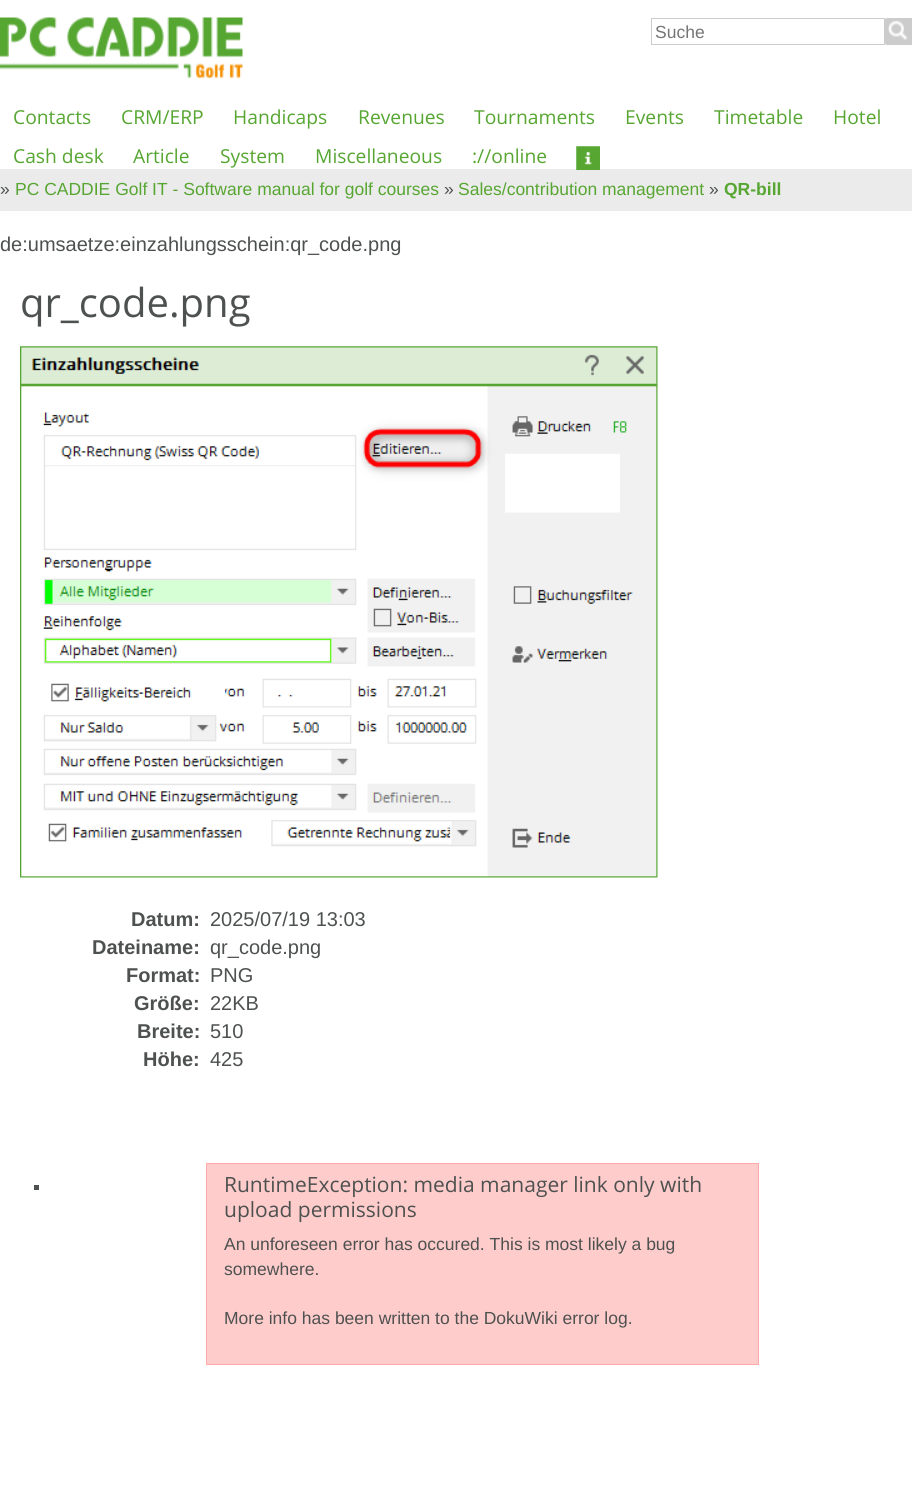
#include <cairo.h>
#include <math.h>
#include <stddef.h>


static void round_rect(cairo_t *cr, double x, double y, double w, double h, double r) {
    cairo_new_sub_path(cr);
    cairo_arc(cr, x + w - r, y + h - r, r, 0, M_PI / 2);
    cairo_arc(cr, x + r, y + h - r, r, M_PI / 2, M_PI);
    cairo_arc(cr, x + r, y + r, r, M_PI, 1.5 * M_PI);
    cairo_arc(cr, x + w - r, y + r, r, 1.5 * M_PI, 2 * M_PI);
    cairo_close_path(cr);
}

static void picture(cairo_t *cr, const char *path, double x, double y, double w, double h) {
    cairo_surface_t *image = cairo_image_surface_create_from_png(path);
    cairo_save(cr);
    cairo_set_source_surface(cr, image, x, y);
    cairo_rectangle(cr, x, y, w, h);
    cairo_fill(cr);
    cairo_restore(cr);
    cairo_surface_destroy(image);
}

int main(void) {
    cairo_surface_t *surface = cairo_image_surface_create(CAIRO_FORMAT_RGB24, 912, 1486);
    cairo_t *cr = cairo_create(surface);
    cairo_font_options_t *options = cairo_font_options_create();
    cairo_font_options_set_hint_metrics(options, CAIRO_HINT_METRICS_OFF);
    cairo_font_options_set_hint_style(options, CAIRO_HINT_STYLE_NONE);
    cairo_set_font_options(cr, options);
    cairo_set_miter_limit(cr, 4);
    cairo_set_source_rgb(cr, 1, 1, 1);
    cairo_paint(cr);
    picture(cr, "img1.png", 0, 17, 243, 62);
    cairo_rectangle(cr, 651.5, 18.5, 233, 26);
    cairo_set_source_rgb(cr, 0.8, 0.8, 0.8);
    cairo_set_line_width(cr, 1);
    cairo_stroke(cr);
    cairo_select_font_face(cr, "Liberation Sans", CAIRO_FONT_SLANT_NORMAL, CAIRO_FONT_WEIGHT_NORMAL);
    cairo_set_font_size(cr, 17.5);
    cairo_set_source_rgb(cr, 0.459, 0.459, 0.459);
    cairo_move_to(cr, 655, 38);
    cairo_show_text(cr, "Suche");
    cairo_set_source_rgb(cr, 0.8, 0.8, 0.8);
    round_rect(cr, 885, 18, 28, 27, 2.5);
    cairo_fill(cr);
    picture(cr, "img2.png", 888, 20, 20, 20);
    round_rect(cr, 885.5, 18.5, 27, 26, 2);
    cairo_stroke(cr);
    cairo_select_font_face(cr, "Open Sans", CAIRO_FONT_SLANT_NORMAL, CAIRO_FONT_WEIGHT_NORMAL);
    cairo_set_font_size(cr, 19.25);
    cairo_set_source_rgb(cr, 0.341, 0.651, 0.196);
    cairo_move_to(cr, 13, 124);
    cairo_show_text(cr, "Contacts");
    cairo_move_to(cr, 121, 124);
    cairo_show_text(cr, "CRM/ERP");
    cairo_move_to(cr, 233, 124);
    cairo_show_text(cr, "Handicaps");
    cairo_move_to(cr, 358, 124);
    cairo_show_text(cr, "Revenues");
    cairo_move_to(cr, 474, 124);
    cairo_show_text(cr, "Tournaments");
    cairo_move_to(cr, 625, 124);
    cairo_show_text(cr, "Events");
    cairo_move_to(cr, 714, 124);
    cairo_show_text(cr, "Timetable");
    cairo_move_to(cr, 833, 124);
    cairo_show_text(cr, "Hotel");
    cairo_move_to(cr, 13, 163);
    cairo_show_text(cr, "Cash desk");
    cairo_move_to(cr, 133, 163);
    cairo_show_text(cr, "Article");
    cairo_move_to(cr, 220, 163);
    cairo_show_text(cr, "System");
    cairo_move_to(cr, 315, 163);
    cairo_show_text(cr, "Miscellaneous");
    cairo_move_to(cr, 472, 163);
    cairo_show_text(cr, "://online");
    cairo_set_source_rgb(cr, 0.918, 0.918, 0.918);
    cairo_rectangle(cr, 0, 169, 912, 42);
    cairo_fill(cr);
    picture(cr, "img3.png", 576, 146, 24, 24);
    cairo_select_font_face(cr, "Liberation Sans", CAIRO_FONT_SLANT_NORMAL, CAIRO_FONT_WEIGHT_NORMAL);
    cairo_set_font_size(cr, 17.5);
    cairo_set_source_rgb(cr, 0.302, 0.318, 0.31);
    cairo_move_to(cr, 0, 195);
    cairo_show_text(cr, "»");
    cairo_set_source_rgb(cr, 0.341, 0.651, 0.196);
    cairo_move_to(cr, 15, 195);
    cairo_show_text(cr, "PC CADDIE Golf IT - Software manual for golf courses");
    cairo_set_source_rgb(cr, 0.302, 0.318, 0.31);
    cairo_move_to(cr, 444, 195);
    cairo_show_text(cr, "»");
    cairo_set_source_rgb(cr, 0.341, 0.651, 0.196);
    cairo_move_to(cr, 458, 195);
    cairo_show_text(cr, "Sales/contribution management");
    cairo_set_source_rgb(cr, 0.302, 0.318, 0.31);
    cairo_move_to(cr, 709, 195);
    cairo_show_text(cr, "»");
    cairo_select_font_face(cr, "Liberation Sans", CAIRO_FONT_SLANT_NORMAL, CAIRO_FONT_WEIGHT_BOLD);
    cairo_set_source_rgb(cr, 0.341, 0.651, 0.196);
    cairo_move_to(cr, 724, 195);
    cairo_show_text(cr, "QR-bill");
    cairo_select_font_face(cr, "Liberation Sans", CAIRO_FONT_SLANT_NORMAL, CAIRO_FONT_WEIGHT_NORMAL);
    cairo_set_font_size(cr, 20);
    cairo_set_source_rgb(cr, 0.302, 0.318, 0.31);
    cairo_move_to(cr, 0, 251);
    cairo_show_text(cr, "de:umsaetze:einzahlungsschein:qr_code.png");
    cairo_select_font_face(cr, "Open Sans", CAIRO_FONT_SLANT_NORMAL, CAIRO_FONT_WEIGHT_NORMAL);
    cairo_set_font_size(cr, 40);
    cairo_move_to(cr, 20, 317);
    cairo_show_text(cr, "qr_code.png");
    picture(cr, "img4.png", 20, 346, 638, 532);
    cairo_select_font_face(cr, "Liberation Sans", CAIRO_FONT_SLANT_NORMAL, CAIRO_FONT_WEIGHT_BOLD);
    cairo_set_font_size(cr, 20);
    cairo_move_to(cr, 131, 926);
    cairo_show_text(cr, "Datum:");
    cairo_select_font_face(cr, "Liberation Sans", CAIRO_FONT_SLANT_NORMAL, CAIRO_FONT_WEIGHT_NORMAL);
    cairo_move_to(cr, 210, 926);
    cairo_show_text(cr, "2025/07/19 13:03");
    cairo_select_font_face(cr, "Liberation Sans", CAIRO_FONT_SLANT_NORMAL, CAIRO_FONT_WEIGHT_BOLD);
    cairo_move_to(cr, 92, 954);
    cairo_show_text(cr, "Dateiname:");
    cairo_select_font_face(cr, "Liberation Sans", CAIRO_FONT_SLANT_NORMAL, CAIRO_FONT_WEIGHT_NORMAL);
    cairo_move_to(cr, 210, 954);
    cairo_show_text(cr, "qr_code.png");
    cairo_select_font_face(cr, "Liberation Sans", CAIRO_FONT_SLANT_NORMAL, CAIRO_FONT_WEIGHT_BOLD);
    cairo_move_to(cr, 126, 982);
    cairo_show_text(cr, "Format:");
    cairo_select_font_face(cr, "Liberation Sans", CAIRO_FONT_SLANT_NORMAL, CAIRO_FONT_WEIGHT_NORMAL);
    cairo_move_to(cr, 210, 982);
    cairo_show_text(cr, "PNG");
    cairo_select_font_face(cr, "Liberation Sans", CAIRO_FONT_SLANT_NORMAL, CAIRO_FONT_WEIGHT_BOLD);
    cairo_move_to(cr, 134, 1010);
    cairo_show_text(cr, "Größe:");
    cairo_select_font_face(cr, "Liberation Sans", CAIRO_FONT_SLANT_NORMAL, CAIRO_FONT_WEIGHT_NORMAL);
    cairo_move_to(cr, 210, 1010);
    cairo_show_text(cr, "22KB");
    cairo_select_font_face(cr, "Liberation Sans", CAIRO_FONT_SLANT_NORMAL, CAIRO_FONT_WEIGHT_BOLD);
    cairo_move_to(cr, 137, 1038);
    cairo_show_text(cr, "Breite:");
    cairo_select_font_face(cr, "Liberation Sans", CAIRO_FONT_SLANT_NORMAL, CAIRO_FONT_WEIGHT_NORMAL);
    cairo_move_to(cr, 210, 1038);
    cairo_show_text(cr, "510");
    cairo_select_font_face(cr, "Liberation Sans", CAIRO_FONT_SLANT_NORMAL, CAIRO_FONT_WEIGHT_BOLD);
    cairo_move_to(cr, 143, 1066);
    cairo_show_text(cr, "Höhe:");
    cairo_select_font_face(cr, "Liberation Sans", CAIRO_FONT_SLANT_NORMAL, CAIRO_FONT_WEIGHT_NORMAL);
    cairo_move_to(cr, 210, 1066);
    cairo_show_text(cr, "425");
    cairo_rectangle(cr, 34, 1185, 5, 5);
    cairo_fill(cr);
    cairo_set_source_rgb(cr, 1, 0.8, 0.8);
    cairo_rectangle(cr, 206.5, 1163.5, 552, 201);
    cairo_fill_preserve(cr);
    cairo_set_source_rgb(cr, 1, 0.667, 0.667);
    cairo_stroke(cr);
    cairo_select_font_face(cr, "Open Sans", CAIRO_FONT_SLANT_NORMAL, CAIRO_FONT_WEIGHT_NORMAL);
    cairo_set_font_size(cr, 21);
    cairo_set_source_rgb(cr, 0.302, 0.318, 0.31);
    cairo_move_to(cr, 224, 1192);
    cairo_show_text(cr, "RuntimeException: media manager link only with");
    cairo_move_to(cr, 224, 1217);
    cairo_show_text(cr, "upload permissions");
    cairo_select_font_face(cr, "Liberation Sans", CAIRO_FONT_SLANT_NORMAL, CAIRO_FONT_WEIGHT_NORMAL);
    cairo_set_font_size(cr, 17.5);
    cairo_move_to(cr, 224, 1250);
    cairo_show_text(cr, "An unforeseen error has occured. This is most likely a bug");
    cairo_move_to(cr, 224, 1275);
    cairo_show_text(cr, "somewhere.");
    cairo_move_to(cr, 224, 1324);
    cairo_show_text(cr, "More info has been written to the DokuWiki error log.");
    cairo_surface_write_to_png(surface, "page.png");
    cairo_font_options_destroy(options);
    cairo_destroy(cr);
    cairo_surface_destroy(surface);
    return 0;
}
